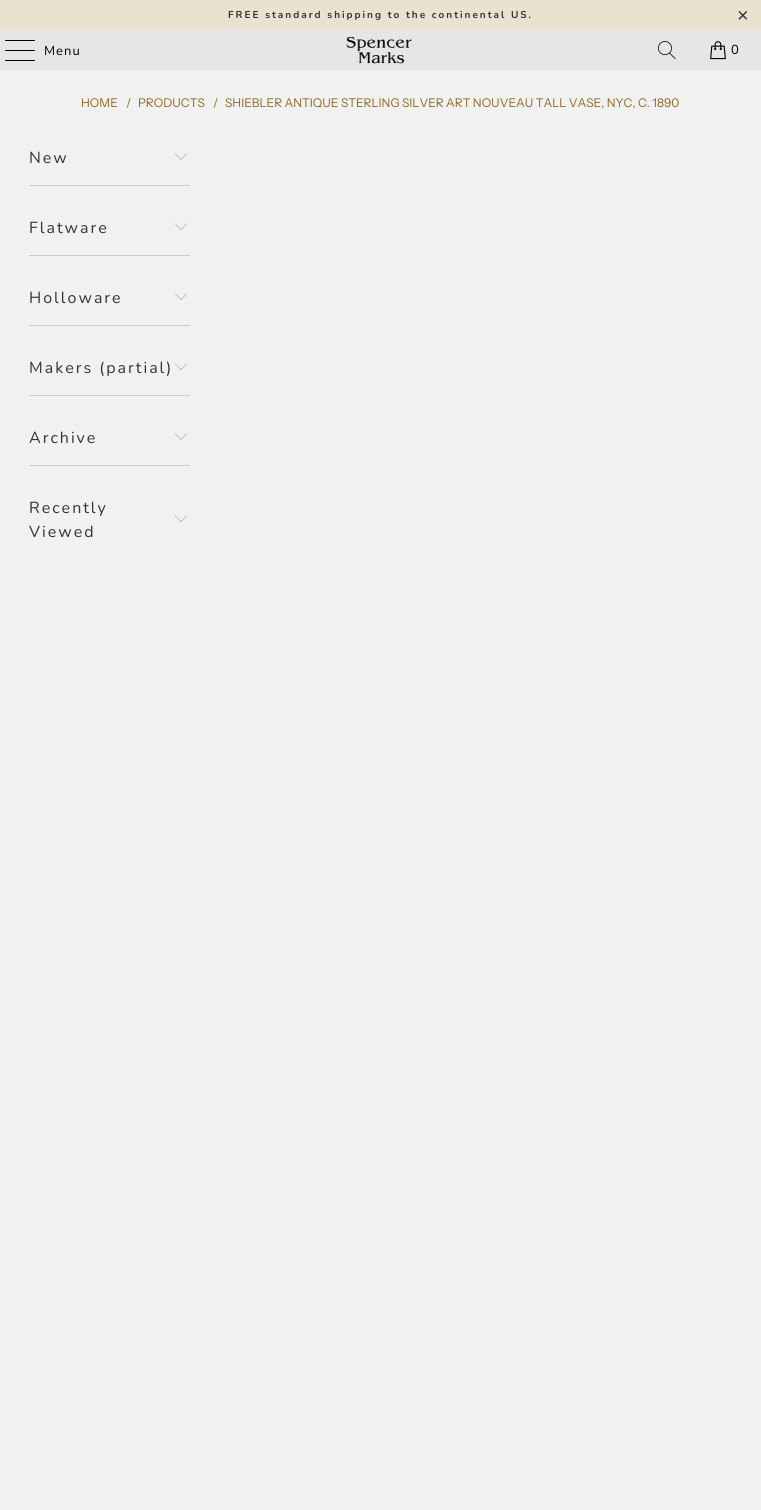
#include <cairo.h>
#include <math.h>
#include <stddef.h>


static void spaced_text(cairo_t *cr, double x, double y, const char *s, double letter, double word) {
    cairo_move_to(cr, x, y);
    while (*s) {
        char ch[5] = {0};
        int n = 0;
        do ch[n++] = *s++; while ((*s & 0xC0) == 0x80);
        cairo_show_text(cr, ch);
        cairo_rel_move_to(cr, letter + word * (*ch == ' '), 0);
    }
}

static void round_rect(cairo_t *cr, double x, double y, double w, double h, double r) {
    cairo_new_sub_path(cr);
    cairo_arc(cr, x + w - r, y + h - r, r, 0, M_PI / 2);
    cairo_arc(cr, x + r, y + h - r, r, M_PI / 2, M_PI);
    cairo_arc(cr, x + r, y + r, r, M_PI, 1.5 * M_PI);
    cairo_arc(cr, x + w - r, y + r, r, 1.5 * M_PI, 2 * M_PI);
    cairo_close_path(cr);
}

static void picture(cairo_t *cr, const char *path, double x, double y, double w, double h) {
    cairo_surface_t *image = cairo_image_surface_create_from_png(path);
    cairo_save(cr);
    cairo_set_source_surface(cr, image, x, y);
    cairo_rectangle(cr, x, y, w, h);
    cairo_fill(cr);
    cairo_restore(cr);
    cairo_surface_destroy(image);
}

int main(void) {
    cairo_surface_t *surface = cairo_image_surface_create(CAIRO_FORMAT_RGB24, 761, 1510);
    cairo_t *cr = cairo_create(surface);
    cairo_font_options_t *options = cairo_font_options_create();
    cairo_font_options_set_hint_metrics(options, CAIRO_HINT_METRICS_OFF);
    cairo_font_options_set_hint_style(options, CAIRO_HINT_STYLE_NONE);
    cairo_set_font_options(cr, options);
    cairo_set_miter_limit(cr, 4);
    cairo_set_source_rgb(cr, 0.945, 0.945, 0.945);
    cairo_paint(cr);
    cairo_set_source_rgb(cr, 0.918, 0.882, 0.82);
    cairo_rectangle(cr, 0, 0, 761, 30);
    cairo_fill(cr);
    cairo_select_font_face(cr, "Nunito", CAIRO_FONT_SLANT_NORMAL, CAIRO_FONT_WEIGHT_BOLD);
    cairo_set_font_size(cr, 10);
    cairo_set_source_rgb(cr, 0.2, 0.2, 0.2);
    spaced_text(cr, 228, 18, "FREE standard shipping to the continental US.", 2, 0);
    cairo_select_font_face(cr, "Liberation Sans", CAIRO_FONT_SLANT_NORMAL, CAIRO_FONT_WEIGHT_NORMAL);
    cairo_set_font_size(cr, 20);
    spaced_text(cr, 737, 22, "×", 2, 0);
    cairo_set_source_rgb(cr, 0.902, 0.902, 0.902);
    cairo_rectangle(cr, 0, 30, 761, 40);
    cairo_fill(cr);
    cairo_set_source_rgb(cr, 0, 0, 0);
    round_rect(cr, 5, 40, 30, 1, 0.5);
    cairo_fill(cr);
    round_rect(cr, 5, 50, 30, 1, 0.5);
    cairo_fill(cr);
    round_rect(cr, 5, 60, 30, 1, 0.5);
    cairo_fill(cr);
    cairo_select_font_face(cr, "Nunito", CAIRO_FONT_SLANT_NORMAL, CAIRO_FONT_WEIGHT_NORMAL);
    cairo_set_font_size(cr, 13);
    spaced_text(cr, 44, 55, "Menu", 1, 0);
    picture(cr, "img1.png", 346, 37, 66, 27);
    picture(cr, "img2.png", 658, 41, 18, 18);
    picture(cr, "img3.png", 710, 41, 16, 19);
    spaced_text(cr, 731, 54, "0", 1, 0);
    cairo_select_font_face(cr, "Instrument Sans", CAIRO_FONT_SLANT_NORMAL, CAIRO_FONT_WEIGHT_NORMAL);
    cairo_set_font_size(cr, 12);
    cairo_set_source_rgb(cr, 0.545, 0.416, 0.106);
    cairo_move_to(cr, 81, 107);
    cairo_show_text(cr, "HOME");
    cairo_move_to(cr, 126, 107);
    cairo_show_text(cr, "/");
    cairo_move_to(cr, 138, 107);
    cairo_show_text(cr, "PRODUCTS");
    cairo_move_to(cr, 213, 107);
    cairo_show_text(cr, "/");
    cairo_move_to(cr, 225, 107);
    cairo_show_text(cr, "SHIEBLER ANTIQUE STERLING SILVER ART NOUVEAU TALL VASE, NYC, C. 1890");
    cairo_set_source_rgb(cr, 0.8, 0.8, 0.8);
    cairo_rectangle(cr, 29, 185, 161, 1);
    cairo_fill(cr);
    cairo_select_font_face(cr, "Nunito", CAIRO_FONT_SLANT_NORMAL, CAIRO_FONT_WEIGHT_NORMAL);
    cairo_set_font_size(cr, 16);
    cairo_set_source_rgb(cr, 0.2, 0.2, 0.2);
    spaced_text(cr, 29, 163, "New", 2, 0);
    picture(cr, "img4.png", 175, 153, 12, 7);
    cairo_set_source_rgb(cr, 0.8, 0.8, 0.8);
    cairo_rectangle(cr, 29, 255, 161, 1);
    cairo_fill(cr);
    cairo_set_source_rgb(cr, 0.2, 0.2, 0.2);
    spaced_text(cr, 29, 233, "Flatware", 2, 0);
    picture(cr, "img4.png", 175, 223, 12, 7);
    cairo_set_source_rgb(cr, 0.8, 0.8, 0.8);
    cairo_rectangle(cr, 29, 325, 161, 1);
    cairo_fill(cr);
    cairo_set_source_rgb(cr, 0.2, 0.2, 0.2);
    spaced_text(cr, 29, 303, "Holloware", 2, 0);
    picture(cr, "img4.png", 175, 293, 12, 7);
    cairo_set_source_rgb(cr, 0.8, 0.8, 0.8);
    cairo_rectangle(cr, 29, 395, 161, 1);
    cairo_fill(cr);
    cairo_set_source_rgb(cr, 0.2, 0.2, 0.2);
    spaced_text(cr, 29, 373, "Makers (partial)", 2, 0);
    picture(cr, "img4.png", 175, 363, 12, 7);
    cairo_set_source_rgb(cr, 0.8, 0.8, 0.8);
    cairo_rectangle(cr, 29, 465, 161, 1);
    cairo_fill(cr);
    cairo_set_source_rgb(cr, 0.2, 0.2, 0.2);
    spaced_text(cr, 29, 443, "Archive", 2, 0);
    picture(cr, "img4.png", 175, 433, 12, 7);
    spaced_text(cr, 29, 513, "Recently", 2, 0);
    picture(cr, "img4.png", 175, 515, 12, 7);
    spaced_text(cr, 29, 537, "Viewed", 2, 0);
    cairo_surface_write_to_png(surface, "page.png");
    cairo_font_options_destroy(options);
    cairo_destroy(cr);
    cairo_surface_destroy(surface);
    return 0;
}
